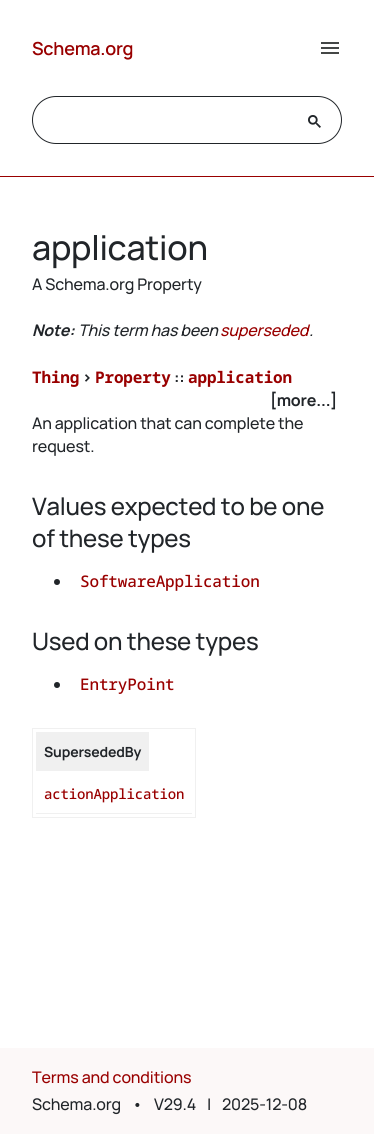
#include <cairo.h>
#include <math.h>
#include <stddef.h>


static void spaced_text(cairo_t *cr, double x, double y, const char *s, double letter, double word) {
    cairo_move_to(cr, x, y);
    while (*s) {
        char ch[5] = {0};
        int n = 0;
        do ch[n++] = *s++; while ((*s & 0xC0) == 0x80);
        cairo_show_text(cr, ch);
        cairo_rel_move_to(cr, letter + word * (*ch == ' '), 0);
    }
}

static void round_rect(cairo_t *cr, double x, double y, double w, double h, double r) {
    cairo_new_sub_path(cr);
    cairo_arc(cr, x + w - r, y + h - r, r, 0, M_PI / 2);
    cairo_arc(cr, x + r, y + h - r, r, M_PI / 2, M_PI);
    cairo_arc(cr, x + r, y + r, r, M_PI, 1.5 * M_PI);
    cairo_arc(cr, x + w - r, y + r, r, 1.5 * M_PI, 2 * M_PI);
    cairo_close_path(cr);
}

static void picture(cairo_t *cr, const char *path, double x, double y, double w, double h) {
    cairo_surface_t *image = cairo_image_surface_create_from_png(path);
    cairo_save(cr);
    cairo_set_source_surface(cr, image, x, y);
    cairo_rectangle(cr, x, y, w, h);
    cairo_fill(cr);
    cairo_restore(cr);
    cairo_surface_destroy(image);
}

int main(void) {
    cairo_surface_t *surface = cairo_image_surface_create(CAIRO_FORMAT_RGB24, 374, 1134);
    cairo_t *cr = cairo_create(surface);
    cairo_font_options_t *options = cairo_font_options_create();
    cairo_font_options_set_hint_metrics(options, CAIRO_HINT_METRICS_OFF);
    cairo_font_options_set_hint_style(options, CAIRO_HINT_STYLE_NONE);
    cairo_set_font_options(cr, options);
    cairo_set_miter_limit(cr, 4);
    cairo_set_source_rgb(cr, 1, 1, 1);
    cairo_paint(cr);
    cairo_select_font_face(cr, "Manrope SemiBold", CAIRO_FONT_SLANT_NORMAL, CAIRO_FONT_WEIGHT_NORMAL);
    cairo_set_font_size(cr, 18);
    cairo_set_source_rgb(cr, 0.6, 0, 0);
    spaced_text(cr, 32, 55, "Schema.org", -0.25, 0);
    picture(cr, "img1.png", 321, 42, 18, 12);
    round_rect(cr, 32.5, 96.5, 309, 47, 23.5);
    cairo_set_source_rgb(cr, 0.129, 0.145, 0.161);
    cairo_set_line_width(cr, 1);
    cairo_stroke(cr);
    picture(cr, "img2.png", 308, 115, 13, 13);
    cairo_set_source_rgb(cr, 0.6, 0, 0);
    cairo_rectangle(cr, 0, 176, 374, 1);
    cairo_fill(cr);
    cairo_select_font_face(cr, "Manrope Medium", CAIRO_FONT_SLANT_NORMAL, CAIRO_FONT_WEIGHT_NORMAL);
    cairo_set_font_size(cr, 34);
    cairo_set_source_rgb(cr, 0.129, 0.145, 0.161);
    spaced_text(cr, 32, 260, "application", -0.25, 0);
    cairo_set_font_size(cr, 16);
    spaced_text(cr, 32, 290, "A Schema.org Property", -0.15, 0);
    cairo_select_font_face(cr, "Manrope", CAIRO_FONT_SLANT_ITALIC, CAIRO_FONT_WEIGHT_BOLD);
    spaced_text(cr, 32, 336, "Note:", -0.15, 0);
    cairo_select_font_face(cr, "Manrope Medium", CAIRO_FONT_SLANT_ITALIC, CAIRO_FONT_WEIGHT_NORMAL);
    spaced_text(cr, 78, 336, "This term has been", -0.15, 0);
    cairo_set_source_rgb(cr, 0.6, 0, 0);
    spaced_text(cr, 220, 336, "superseded", -0.15, 0);
    cairo_set_source_rgb(cr, 0.129, 0.145, 0.161);
    spaced_text(cr, 309, 336, ".", -0.15, 0);
    cairo_select_font_face(cr, "Noto Sans Mono", CAIRO_FONT_SLANT_NORMAL, CAIRO_FONT_WEIGHT_BOLD);
    cairo_set_source_rgb(cr, 0.6, 0, 0);
    spaced_text(cr, 32, 383, "Thing", -0.15, 0);
    cairo_select_font_face(cr, "Manrope", CAIRO_FONT_SLANT_NORMAL, CAIRO_FONT_WEIGHT_BOLD);
    cairo_set_source_rgb(cr, 0.129, 0.145, 0.161);
    spaced_text(cr, 82, 383, ">", -0.15, 0);
    cairo_select_font_face(cr, "Noto Sans Mono", CAIRO_FONT_SLANT_NORMAL, CAIRO_FONT_WEIGHT_BOLD);
    cairo_set_source_rgb(cr, 0.6, 0, 0);
    spaced_text(cr, 95, 383, "Property", -0.15, 0);
    cairo_select_font_face(cr, "Manrope", CAIRO_FONT_SLANT_NORMAL, CAIRO_FONT_WEIGHT_BOLD);
    cairo_set_source_rgb(cr, 0.129, 0.145, 0.161);
    spaced_text(cr, 174, 383, "::", -0.15, 0);
    cairo_select_font_face(cr, "Noto Sans Mono", CAIRO_FONT_SLANT_NORMAL, CAIRO_FONT_WEIGHT_BOLD);
    cairo_set_source_rgb(cr, 0.6, 0, 0);
    spaced_text(cr, 188, 383, "application", -0.15, 0);
    cairo_select_font_face(cr, "Manrope", CAIRO_FONT_SLANT_NORMAL, CAIRO_FONT_WEIGHT_BOLD);
    cairo_set_source_rgb(cr, 0.129, 0.145, 0.161);
    spaced_text(cr, 270, 406, "[more...]", -0.15, 0);
    cairo_select_font_face(cr, "Manrope Medium", CAIRO_FONT_SLANT_NORMAL, CAIRO_FONT_WEIGHT_NORMAL);
    spaced_text(cr, 32, 429, "An application that can complete the", -0.15, 0);
    spaced_text(cr, 32, 452, "request.", -0.15, 0);
    cairo_set_font_size(cr, 24);
    spaced_text(cr, 32, 515, "Values expected to be one", -0.25, 0);
    spaced_text(cr, 32, 547, "of these types", -0.25, 0);
    cairo_new_path(cr);
    cairo_arc(cr, 57, 582, 3, 0, 2 * M_PI);
    cairo_fill(cr);
    cairo_select_font_face(cr, "Noto Sans Mono Medium", CAIRO_FONT_SLANT_NORMAL, CAIRO_FONT_WEIGHT_NORMAL);
    cairo_set_font_size(cr, 16);
    cairo_set_source_rgb(cr, 0.6, 0, 0);
    spaced_text(cr, 80, 587, "SoftwareApplication", -0.15, 0);
    cairo_select_font_face(cr, "Manrope Medium", CAIRO_FONT_SLANT_NORMAL, CAIRO_FONT_WEIGHT_NORMAL);
    cairo_set_font_size(cr, 24);
    cairo_set_source_rgb(cr, 0.129, 0.145, 0.161);
    spaced_text(cr, 32, 650, "Used on these types", -0.25, 0);
    cairo_new_path(cr);
    cairo_arc(cr, 57, 685, 3, 0, 2 * M_PI);
    cairo_fill(cr);
    cairo_select_font_face(cr, "Noto Sans Mono Medium", CAIRO_FONT_SLANT_NORMAL, CAIRO_FONT_WEIGHT_NORMAL);
    cairo_set_font_size(cr, 16);
    cairo_set_source_rgb(cr, 0.6, 0, 0);
    spaced_text(cr, 80, 690, "EntryPoint", -0.15, 0);
    cairo_rectangle(cr, 32.5, 728.5, 163, 89);
    cairo_set_source_rgb(cr, 0.941, 0.941, 0.941);
    cairo_stroke(cr);
    cairo_rectangle(cr, 36, 732, 113, 39);
    cairo_fill(cr);
    cairo_select_font_face(cr, "Manrope", CAIRO_FONT_SLANT_NORMAL, CAIRO_FONT_WEIGHT_BOLD);
    cairo_set_font_size(cr, 14);
    cairo_set_source_rgb(cr, 0.129, 0.145, 0.161);
    spaced_text(cr, 44, 757, "SupersededBy", -0.15, 0);
    cairo_set_source_rgb(cr, 0.941, 0.941, 0.941);
    cairo_rectangle(cr, 36, 813, 156, 1);
    cairo_fill(cr);
    cairo_select_font_face(cr, "Noto Sans Mono Medium", CAIRO_FONT_SLANT_NORMAL, CAIRO_FONT_WEIGHT_NORMAL);
    cairo_set_source_rgb(cr, 0.6, 0, 0);
    spaced_text(cr, 44, 799, "actionApplication", -0.15, 0);
    cairo_set_source_rgb(cr, 0.988, 0.969, 0.969);
    cairo_rectangle(cr, 0, 1048, 374, 86);
    cairo_fill(cr);
    cairo_select_font_face(cr, "Manrope Medium", CAIRO_FONT_SLANT_NORMAL, CAIRO_FONT_WEIGHT_NORMAL);
    cairo_set_font_size(cr, 16);
    cairo_set_source_rgb(cr, 0.6, 0, 0);
    spaced_text(cr, 32, 1083, "Terms and conditions", -0.15, 0);
    cairo_set_source_rgb(cr, 0.129, 0.145, 0.161);
    spaced_text(cr, 32, 1110, "Schema.org", -0.15, 0);
    spaced_text(cr, 132, 1110, "•", -0.15, 0);
    spaced_text(cr, 154, 1110, "V29.4", -0.15, 0);
    spaced_text(cr, 207, 1110, "|", -0.15, 0);
    spaced_text(cr, 222, 1110, "2025-12-08", -0.15, 0);
    cairo_surface_write_to_png(surface, "page.png");
    cairo_font_options_destroy(options);
    cairo_destroy(cr);
    cairo_surface_destroy(surface);
    return 0;
}
